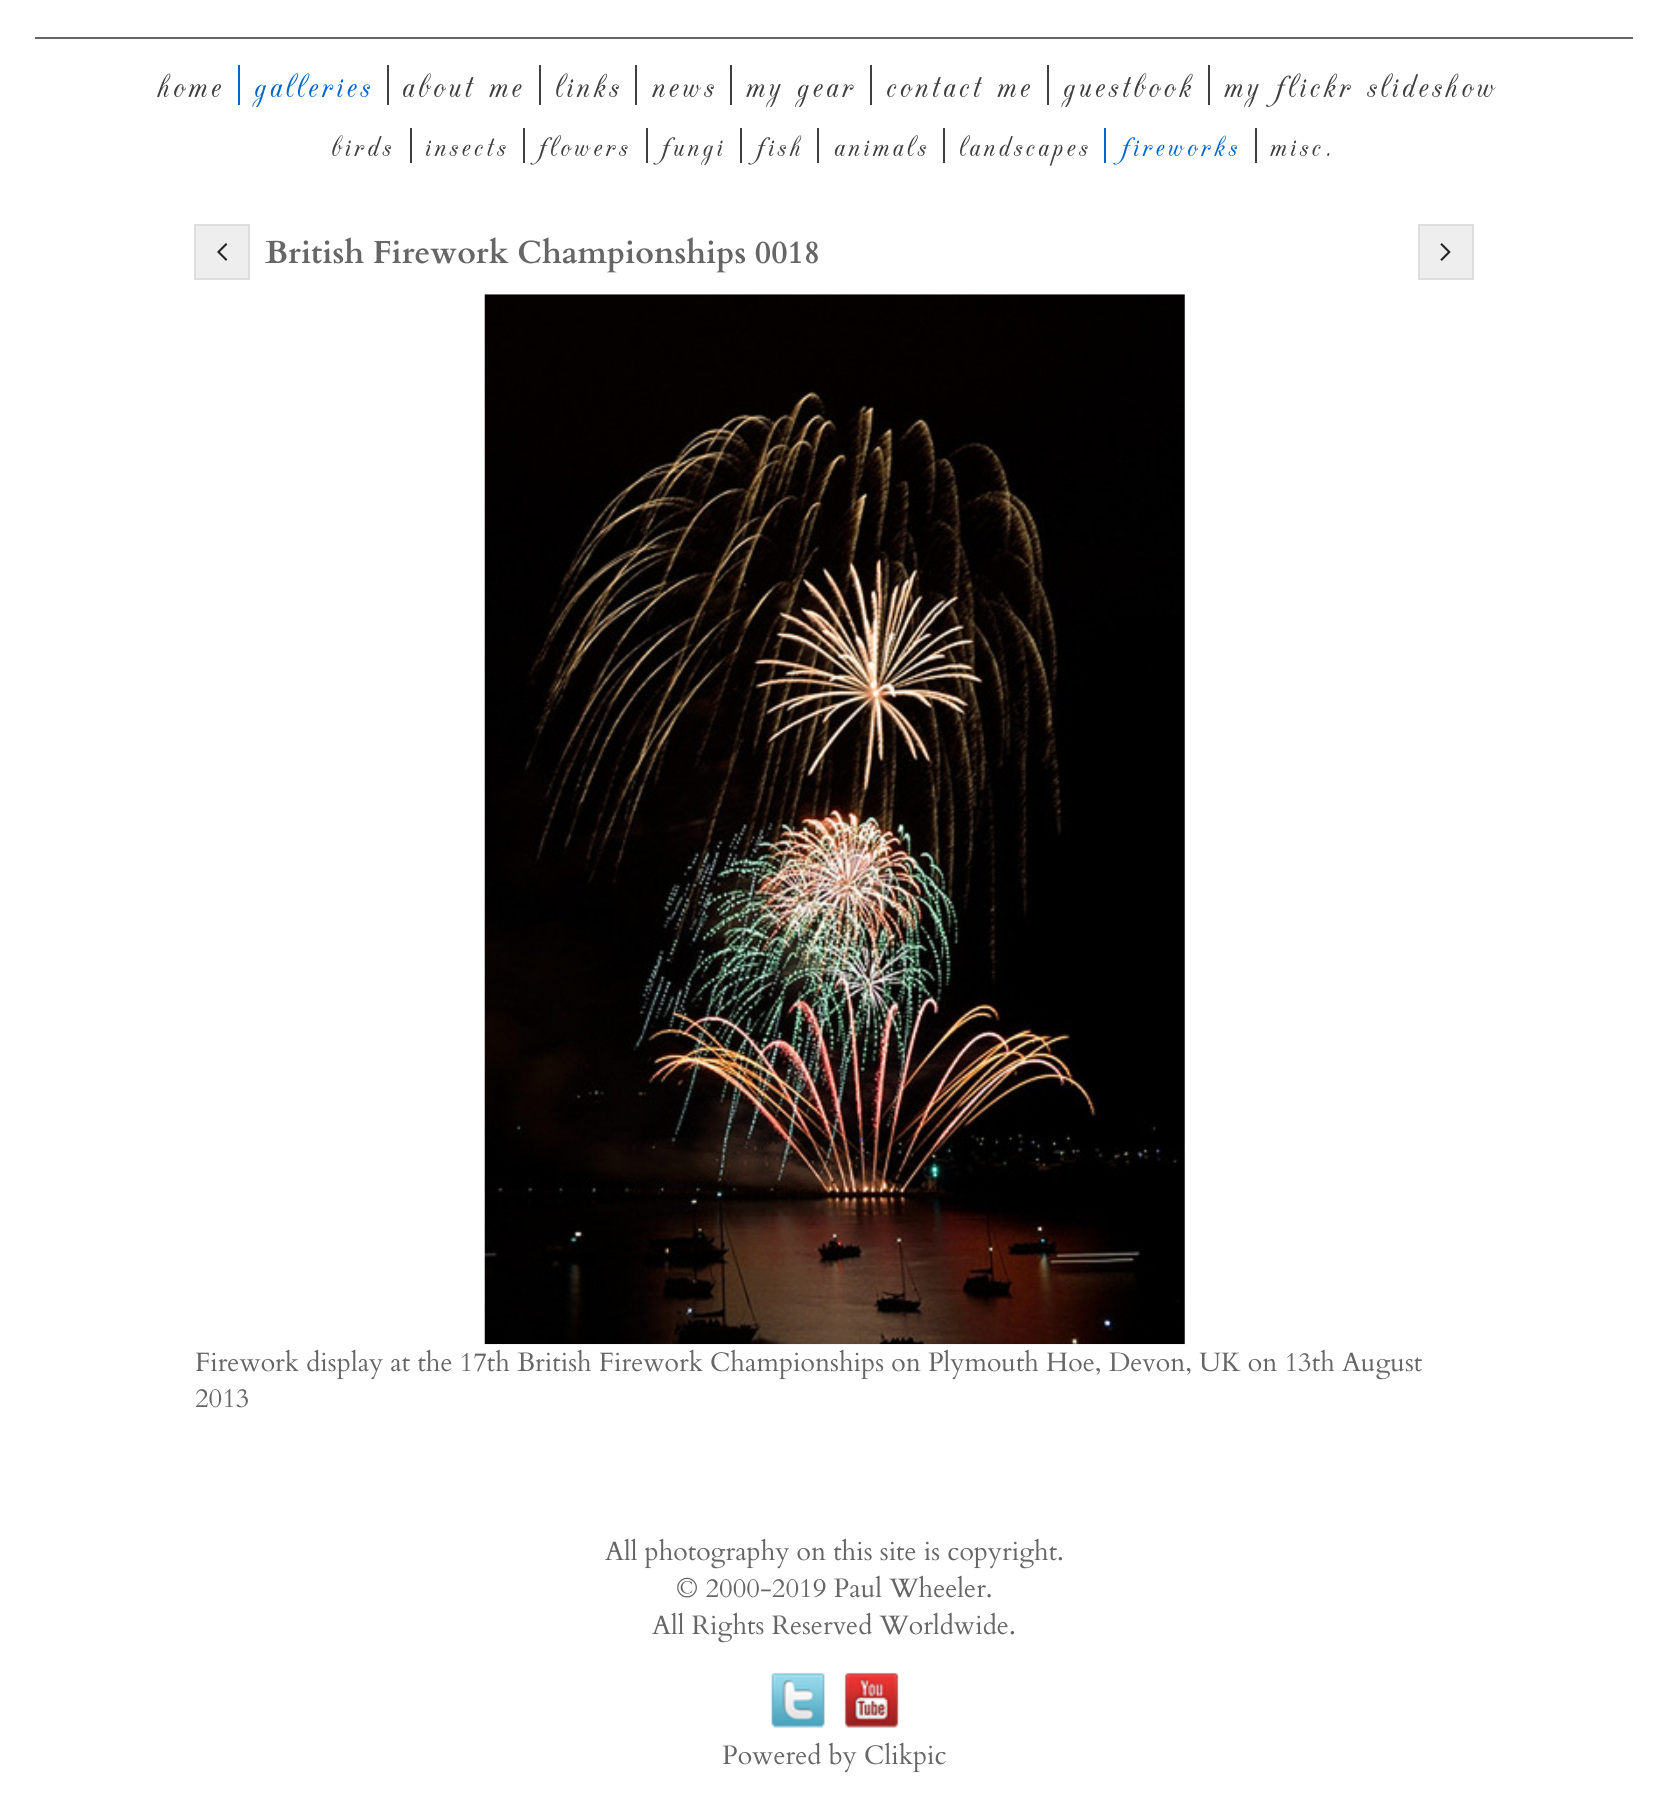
#include <cairo.h>
#include <math.h>
#include <stddef.h>


static void spaced_text(cairo_t *cr, double x, double y, const char *s, double letter, double word) {
    cairo_move_to(cr, x, y);
    while (*s) {
        char ch[5] = {0};
        int n = 0;
        do ch[n++] = *s++; while ((*s & 0xC0) == 0x80);
        cairo_show_text(cr, ch);
        cairo_rel_move_to(cr, letter + word * (*ch == ' '), 0);
    }
}

static void picture(cairo_t *cr, const char *path, double x, double y, double w, double h) {
    cairo_surface_t *image = cairo_image_surface_create_from_png(path);
    cairo_save(cr);
    cairo_set_source_surface(cr, image, x, y);
    cairo_rectangle(cr, x, y, w, h);
    cairo_fill(cr);
    cairo_restore(cr);
    cairo_surface_destroy(image);
}

int main(void) {
    cairo_surface_t *surface = cairo_image_surface_create(CAIRO_FORMAT_RGB24, 1667, 1801);
    cairo_t *cr = cairo_create(surface);
    cairo_font_options_t *options = cairo_font_options_create();
    cairo_font_options_set_hint_metrics(options, CAIRO_HINT_METRICS_OFF);
    cairo_font_options_set_hint_style(options, CAIRO_HINT_STYLE_NONE);
    cairo_set_font_options(cr, options);
    cairo_set_miter_limit(cr, 4);
    cairo_set_source_rgb(cr, 1, 1, 1);
    cairo_paint(cr);
    cairo_set_source_rgb(cr, 0.4, 0.4, 0.4);
    cairo_rectangle(cr, 35, 37, 1598, 2);
    cairo_fill(cr);
    cairo_select_font_face(cr, "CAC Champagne", CAIRO_FONT_SLANT_NORMAL, CAIRO_FONT_WEIGHT_NORMAL);
    cairo_set_font_size(cr, 40);
    cairo_set_source_rgb(cr, 0.247, 0.247, 0.247);
    spaced_text(cr, 157, 97, "home", 3.5, 0);
    cairo_set_source_rgb(cr, 0, 0.396, 0.812);
    cairo_rectangle(cr, 238, 65, 2, 40);
    cairo_fill(cr);
    cairo_save(cr);
    cairo_rectangle(cr, 35, 65, 1598, 42);
    cairo_clip(cr);
    spaced_text(cr, 254, 97, "galleries", 3.5, 0);
    cairo_restore(cr);
    cairo_set_source_rgb(cr, 0.247, 0.247, 0.247);
    cairo_rectangle(cr, 387, 65, 2, 40);
    cairo_fill(cr);
    spaced_text(cr, 402, 97, "about me", 3.5, 0);
    cairo_rectangle(cr, 539, 65, 2, 40);
    cairo_fill(cr);
    spaced_text(cr, 555, 97, "links", 3.5, 0);
    cairo_rectangle(cr, 635, 65, 2, 40);
    cairo_fill(cr);
    spaced_text(cr, 652, 97, "news", 3.5, 0);
    cairo_rectangle(cr, 730, 65, 2, 40);
    cairo_fill(cr);
    cairo_save(cr);
    cairo_rectangle(cr, 35, 65, 1598, 42);
    cairo_clip(cr);
    spaced_text(cr, 746, 97, "my gear", 3.5, 0);
    cairo_restore(cr);
    cairo_rectangle(cr, 870, 65, 2, 40);
    cairo_fill(cr);
    spaced_text(cr, 886, 97, "contact me", 3.5, 0);
    cairo_rectangle(cr, 1047, 65, 2, 40);
    cairo_fill(cr);
    cairo_save(cr);
    cairo_rectangle(cr, 35, 65, 1598, 42);
    cairo_clip(cr);
    spaced_text(cr, 1063, 97, "guestbook", 3.5, 0);
    cairo_restore(cr);
    cairo_rectangle(cr, 1208, 65, 2, 40);
    cairo_fill(cr);
    cairo_save(cr);
    cairo_rectangle(cr, 35, 65, 1598, 42);
    cairo_clip(cr);
    spaced_text(cr, 1224, 97, "my flickr slideshow", 3.5, 0);
    cairo_restore(cr);
    cairo_set_font_size(cr, 35);
    spaced_text(cr, 331, 156, "birds", 3.5, 0);
    cairo_rectangle(cr, 410, 128, 2, 35);
    cairo_fill(cr);
    spaced_text(cr, 425, 156, "insects", 3.5, 0);
    cairo_rectangle(cr, 523, 128, 2, 35);
    cairo_fill(cr);
    spaced_text(cr, 538, 156, "flowers", 3.5, 0);
    cairo_rectangle(cr, 646, 128, 2, 35);
    cairo_fill(cr);
    cairo_save(cr);
    cairo_rectangle(cr, 35, 128, 1598, 37);
    cairo_clip(cr);
    spaced_text(cr, 661, 156, "fungi", 3.5, 0);
    cairo_restore(cr);
    cairo_rectangle(cr, 740, 128, 2, 35);
    cairo_fill(cr);
    spaced_text(cr, 756, 156, "fish", 3.5, 0);
    cairo_rectangle(cr, 817, 128, 2, 35);
    cairo_fill(cr);
    spaced_text(cr, 834, 156, "animals", 3.5, 0);
    cairo_rectangle(cr, 943, 128, 2, 35);
    cairo_fill(cr);
    spaced_text(cr, 959, 156, "landscapes", 3.5, 0);
    cairo_set_source_rgb(cr, 0, 0.396, 0.812);
    cairo_rectangle(cr, 1104, 128, 2, 35);
    cairo_fill(cr);
    spaced_text(cr, 1121, 156, "fireworks", 3.5, 0);
    cairo_set_source_rgb(cr, 0.247, 0.247, 0.247);
    cairo_rectangle(cr, 1255, 128, 2, 35);
    cairo_fill(cr);
    spaced_text(cr, 1270, 156, "misc.", 3.5, 0);
    cairo_set_source_rgb(cr, 0.933, 0.933, 0.933);
    cairo_rectangle(cr, 195, 225, 54, 54);
    cairo_fill_preserve(cr);
    cairo_set_source_rgb(cr, 0.867, 0.867, 0.867);
    cairo_stroke(cr);
    picture(cr, "img1.png", 217, 243, 11, 18);
    cairo_set_source_rgb(cr, 0.933, 0.933, 0.933);
    cairo_rectangle(cr, 1419, 225, 54, 54);
    cairo_fill_preserve(cr);
    cairo_set_source_rgb(cr, 0.867, 0.867, 0.867);
    cairo_stroke(cr);
    picture(cr, "img2.png", 1440, 243, 11, 18);
    cairo_select_font_face(cr, "Cardo", CAIRO_FONT_SLANT_NORMAL, CAIRO_FONT_WEIGHT_BOLD);
    cairo_set_font_size(cr, 31.9);
    cairo_set_source_rgb(cr, 0.4, 0.4, 0.4);
    cairo_move_to(cr, 265, 263);
    cairo_show_text(cr, "British Firework Championships 0018");
    picture(cr, "img3.png", 484, 294, 701, 1051);
    cairo_select_font_face(cr, "Cardo", CAIRO_FONT_SLANT_NORMAL, CAIRO_FONT_WEIGHT_NORMAL);
    cairo_set_font_size(cr, 26.6);
    cairo_move_to(cr, 195, 1371);
    cairo_show_text(cr, "Firework display at the 17th British Firework Championships on Plymouth Hoe, Devon, UK on 13th August");
    cairo_move_to(cr, 195, 1407);
    cairo_show_text(cr, "2013");
    cairo_move_to(cr, 605, 1560);
    cairo_show_text(cr, "All photography on this site is copyright.");
    cairo_move_to(cr, 676, 1597);
    cairo_show_text(cr, "© 2000-2019 Paul Wheeler.");
    cairo_move_to(cr, 652, 1634);
    cairo_show_text(cr, "All Rights Reserved Worldwide.");
    picture(cr, "img4.png", 771, 1672, 54, 56);
    picture(cr, "img5.png", 844, 1672, 55, 56);
    cairo_move_to(cr, 722, 1764);
    cairo_show_text(cr, "Powered by Clikpic");
    cairo_surface_write_to_png(surface, "page.png");
    cairo_font_options_destroy(options);
    cairo_destroy(cr);
    cairo_surface_destroy(surface);
    return 0;
}
